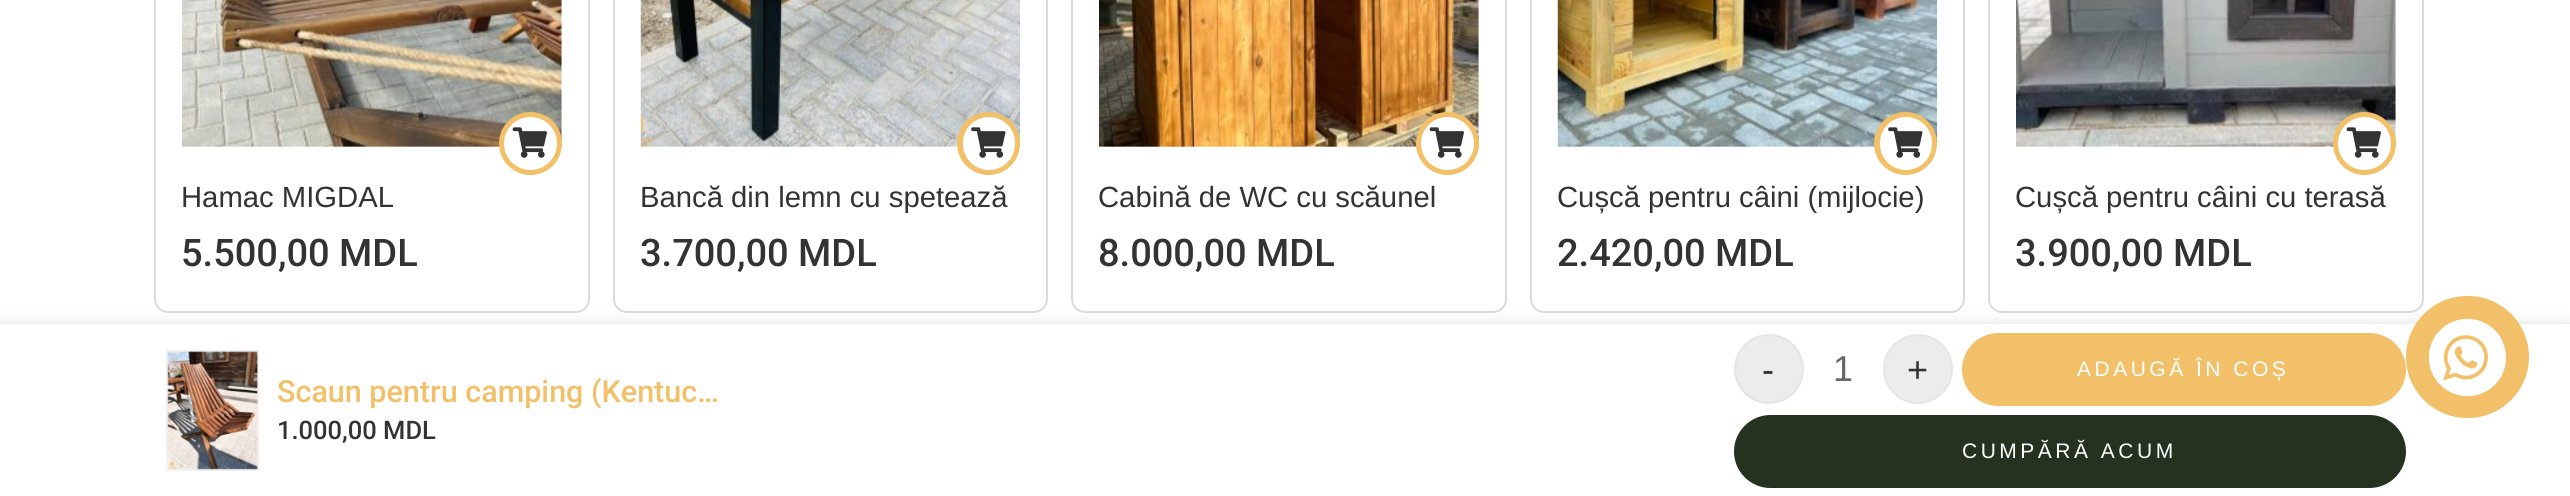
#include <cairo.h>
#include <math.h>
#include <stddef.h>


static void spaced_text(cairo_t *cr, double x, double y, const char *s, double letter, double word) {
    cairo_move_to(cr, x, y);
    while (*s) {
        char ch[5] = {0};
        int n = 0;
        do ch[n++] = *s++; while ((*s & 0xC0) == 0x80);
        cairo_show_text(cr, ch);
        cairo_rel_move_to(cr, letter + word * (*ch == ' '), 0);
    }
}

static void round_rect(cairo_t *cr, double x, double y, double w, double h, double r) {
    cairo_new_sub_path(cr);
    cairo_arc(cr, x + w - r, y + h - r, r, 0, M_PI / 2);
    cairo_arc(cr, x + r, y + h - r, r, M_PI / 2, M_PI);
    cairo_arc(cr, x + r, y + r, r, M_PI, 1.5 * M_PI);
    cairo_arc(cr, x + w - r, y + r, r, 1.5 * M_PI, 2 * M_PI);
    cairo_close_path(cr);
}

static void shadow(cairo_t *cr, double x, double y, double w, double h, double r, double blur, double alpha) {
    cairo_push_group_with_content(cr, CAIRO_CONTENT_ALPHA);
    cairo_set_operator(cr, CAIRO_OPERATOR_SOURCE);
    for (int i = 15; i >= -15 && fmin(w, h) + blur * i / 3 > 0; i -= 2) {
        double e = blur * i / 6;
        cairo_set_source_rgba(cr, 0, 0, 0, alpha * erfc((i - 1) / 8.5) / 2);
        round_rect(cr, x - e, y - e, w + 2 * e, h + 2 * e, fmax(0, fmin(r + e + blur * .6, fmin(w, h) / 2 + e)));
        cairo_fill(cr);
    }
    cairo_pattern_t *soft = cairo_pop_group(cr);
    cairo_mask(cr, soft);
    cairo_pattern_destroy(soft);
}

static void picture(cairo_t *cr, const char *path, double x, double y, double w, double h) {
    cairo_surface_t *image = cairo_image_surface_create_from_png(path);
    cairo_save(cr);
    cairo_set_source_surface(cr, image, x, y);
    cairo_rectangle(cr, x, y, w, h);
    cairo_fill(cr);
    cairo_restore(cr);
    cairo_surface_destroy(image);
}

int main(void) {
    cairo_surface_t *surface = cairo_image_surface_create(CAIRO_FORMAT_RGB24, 2570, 496);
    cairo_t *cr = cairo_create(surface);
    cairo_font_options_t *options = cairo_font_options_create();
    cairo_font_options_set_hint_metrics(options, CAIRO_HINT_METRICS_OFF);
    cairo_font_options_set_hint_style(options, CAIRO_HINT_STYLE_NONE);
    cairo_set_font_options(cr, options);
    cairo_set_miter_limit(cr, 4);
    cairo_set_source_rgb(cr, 1, 1, 1);
    cairo_paint(cr);
    round_rect(cr, 155, -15, 434, 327, 13);
    cairo_set_source_rgb(cr, 0.851, 0.859, 0.871);
    cairo_stroke(cr);
    picture(cr, "img1.png", 182, 0, 380, 147);
    cairo_set_source_rgb(cr, 0.949, 0.753, 0.408);
    cairo_arc(cr, 530.5, 143.5, 31.5, 0, 2 * M_PI);
    cairo_fill(cr);
    cairo_set_source_rgb(cr, 1, 1, 1);
    cairo_arc(cr, 530.5, 143.5, 26.5, 0, 2 * M_PI);
    cairo_fill(cr);
    picture(cr, "img2.png", 512, 127, 35, 31);
    cairo_select_font_face(cr, "Liberation Sans", CAIRO_FONT_SLANT_NORMAL, CAIRO_FONT_WEIGHT_NORMAL);
    cairo_set_font_size(cr, 29.25);
    cairo_set_source_rgb(cr, 0.2, 0.2, 0.2);
    cairo_move_to(cr, 181, 207);
    cairo_show_text(cr, "Hamac MIGDAL");
    cairo_select_font_face(cr, "Roboto Medium", CAIRO_FONT_SLANT_NORMAL, CAIRO_FONT_WEIGHT_NORMAL);
    cairo_set_font_size(cr, 38);
    cairo_move_to(cr, 181, 266);
    cairo_show_text(cr, "5.500,00 MDL");
    round_rect(cr, 614, -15, 433, 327, 13);
    cairo_set_source_rgb(cr, 0.851, 0.859, 0.871);
    cairo_stroke(cr);
    picture(cr, "img3.png", 640, 0, 381, 147);
    cairo_set_source_rgb(cr, 0.949, 0.753, 0.408);
    cairo_arc(cr, 988.5, 143.5, 31.5, 0, 2 * M_PI);
    cairo_fill(cr);
    cairo_set_source_rgb(cr, 1, 1, 1);
    round_rect(cr, 963, 117, 52, 53, 26);
    cairo_fill(cr);
    picture(cr, "img4.png", 971, 127, 35, 31);
    cairo_select_font_face(cr, "Liberation Sans", CAIRO_FONT_SLANT_NORMAL, CAIRO_FONT_WEIGHT_NORMAL);
    cairo_set_font_size(cr, 29.25);
    cairo_set_source_rgb(cr, 0.2, 0.2, 0.2);
    cairo_move_to(cr, 640, 207);
    cairo_show_text(cr, "Bancă din lemn cu spetează");
    cairo_select_font_face(cr, "Roboto Medium", CAIRO_FONT_SLANT_NORMAL, CAIRO_FONT_WEIGHT_NORMAL);
    cairo_set_font_size(cr, 38);
    cairo_move_to(cr, 640, 266);
    cairo_show_text(cr, "3.700,00 MDL");
    round_rect(cr, 1072, -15, 434, 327, 13);
    cairo_set_source_rgb(cr, 0.851, 0.859, 0.871);
    cairo_stroke(cr);
    picture(cr, "img5.png", 1099, 0, 380, 147);
    cairo_set_source_rgb(cr, 0.949, 0.753, 0.408);
    cairo_arc(cr, 1447.5, 143.5, 31.5, 0, 2 * M_PI);
    cairo_fill(cr);
    cairo_set_source_rgb(cr, 1, 1, 1);
    cairo_arc(cr, 1447.5, 143.5, 26.5, 0, 2 * M_PI);
    cairo_fill(cr);
    picture(cr, "img2.png", 1429, 127, 35, 31);
    cairo_select_font_face(cr, "Liberation Sans", CAIRO_FONT_SLANT_NORMAL, CAIRO_FONT_WEIGHT_NORMAL);
    cairo_set_font_size(cr, 29.25);
    cairo_set_source_rgb(cr, 0.2, 0.2, 0.2);
    cairo_move_to(cr, 1098, 207);
    cairo_show_text(cr, "Cabină de WC cu scăunel");
    cairo_select_font_face(cr, "Roboto Medium", CAIRO_FONT_SLANT_NORMAL, CAIRO_FONT_WEIGHT_NORMAL);
    cairo_set_font_size(cr, 38);
    cairo_move_to(cr, 1098, 266);
    cairo_show_text(cr, "8.000,00 MDL");
    round_rect(cr, 1531, -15, 433, 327, 13);
    cairo_set_source_rgb(cr, 0.851, 0.859, 0.871);
    cairo_stroke(cr);
    picture(cr, "img6.png", 1557, 0, 381, 147);
    cairo_set_source_rgb(cr, 0.949, 0.753, 0.408);
    cairo_arc(cr, 1905.5, 143.5, 31.5, 0, 2 * M_PI);
    cairo_fill(cr);
    cairo_set_source_rgb(cr, 1, 1, 1);
    round_rect(cr, 1880, 117, 52, 53, 26);
    cairo_fill(cr);
    picture(cr, "img4.png", 1888, 127, 35, 31);
    cairo_select_font_face(cr, "Liberation Sans", CAIRO_FONT_SLANT_NORMAL, CAIRO_FONT_WEIGHT_NORMAL);
    cairo_set_font_size(cr, 29.25);
    cairo_set_source_rgb(cr, 0.2, 0.2, 0.2);
    cairo_move_to(cr, 1557, 207);
    cairo_show_text(cr, "Cușcă pentru câini (mijlocie)");
    cairo_select_font_face(cr, "Roboto Medium", CAIRO_FONT_SLANT_NORMAL, CAIRO_FONT_WEIGHT_NORMAL);
    cairo_set_font_size(cr, 38);
    cairo_move_to(cr, 1557, 266);
    cairo_show_text(cr, "2.420,00 MDL");
    round_rect(cr, 1989, -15, 434, 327, 13);
    cairo_set_source_rgb(cr, 0.851, 0.859, 0.871);
    cairo_stroke(cr);
    picture(cr, "img7.png", 2016, 0, 380, 147);
    cairo_set_source_rgb(cr, 0.949, 0.753, 0.408);
    cairo_arc(cr, 2364.5, 143.5, 31.5, 0, 2 * M_PI);
    cairo_fill(cr);
    cairo_set_source_rgb(cr, 1, 1, 1);
    cairo_arc(cr, 2364.5, 143.5, 26.5, 0, 2 * M_PI);
    cairo_fill(cr);
    picture(cr, "img2.png", 2346, 127, 35, 31);
    cairo_select_font_face(cr, "Liberation Sans", CAIRO_FONT_SLANT_NORMAL, CAIRO_FONT_WEIGHT_NORMAL);
    cairo_set_font_size(cr, 29.25);
    cairo_set_source_rgb(cr, 0.2, 0.2, 0.2);
    cairo_move_to(cr, 2015, 207);
    cairo_show_text(cr, "Cușcă pentru câini cu terasă");
    cairo_select_font_face(cr, "Roboto Medium", CAIRO_FONT_SLANT_NORMAL, CAIRO_FONT_WEIGHT_NORMAL);
    cairo_set_font_size(cr, 38);
    cairo_move_to(cr, 2015, 266);
    cairo_show_text(cr, "3.900,00 MDL");
    cairo_set_source_rgb(cr, 0, 0, 0);
    shadow(cr, 4, 326, 2563, 168, 0, 9, 0.15);
    cairo_set_source_rgb(cr, 1, 1, 1);
    cairo_rectangle(cr, 0, 324, 2570, 172);
    cairo_fill(cr);
    cairo_set_source_rgb(cr, 0.937, 0.937, 0.937);
    cairo_rectangle(cr, 0, 322, 2570, 2);
    cairo_fill(cr);
    cairo_rectangle(cr, 167, 351, 91, 119);
    cairo_set_source_rgb(cr, 0.945, 0.945, 0.945);
    cairo_stroke(cr);
    picture(cr, "img8.png", 167, 351, 91, 119);
    cairo_set_font_size(cr, 30.5);
    cairo_set_source_rgb(cr, 0.949, 0.753, 0.408);
    cairo_move_to(cr, 277, 402);
    cairo_show_text(cr, "Scaun pentru camping (Kentuc…");
    cairo_set_font_size(cr, 25.5);
    cairo_set_source_rgb(cr, 0.2, 0.2, 0.2);
    cairo_move_to(cr, 277, 439);
    cairo_show_text(cr, "1.000,00 MDL");
    cairo_set_source_rgb(cr, 0.925, 0.925, 0.925);
    cairo_new_path(cr);
    cairo_arc(cr, 1769, 369, 34, 0, 2 * M_PI);
    cairo_fill_preserve(cr);
    cairo_set_source_rgb(cr, 0.898, 0.898, 0.898);
    cairo_stroke(cr);
    cairo_select_font_face(cr, "Liberation Sans", CAIRO_FONT_SLANT_NORMAL, CAIRO_FONT_WEIGHT_NORMAL);
    cairo_set_font_size(cr, 36);
    cairo_set_source_rgb(cr, 0.2, 0.2, 0.2);
    cairo_move_to(cr, 1762, 382);
    cairo_show_text(cr, "-");
    cairo_set_source_rgb(cr, 0.4, 0.4, 0.4);
    cairo_move_to(cr, 1833, 381);
    cairo_show_text(cr, "1");
    cairo_set_source_rgb(cr, 0.925, 0.925, 0.925);
    cairo_new_path(cr);
    cairo_arc(cr, 1918, 369, 34, 0, 2 * M_PI);
    cairo_fill_preserve(cr);
    cairo_set_source_rgb(cr, 0.898, 0.898, 0.898);
    cairo_stroke(cr);
    cairo_set_source_rgb(cr, 0.2, 0.2, 0.2);
    cairo_move_to(cr, 1907, 382);
    cairo_show_text(cr, "+");
    cairo_set_source_rgb(cr, 0.949, 0.753, 0.408);
    round_rect(cr, 1963, 334, 442, 71, 35.5);
    cairo_fill_preserve(cr);
    cairo_stroke(cr);
    cairo_set_font_size(cr, 21);
    cairo_set_source_rgb(cr, 1, 1, 1);
    spaced_text(cr, 2077, 376, "ADAUGĂ ÎN COȘ", 3.5, 0);
    cairo_set_source_rgb(cr, 0.141, 0.196, 0.122);
    round_rect(cr, 1734, 415, 672, 73, 36.5);
    cairo_fill(cr);
    cairo_set_source_rgb(cr, 1, 1, 1);
    spaced_text(cr, 1962, 458, "CUMPĂRĂ ACUM", 3.5, 0);
    cairo_set_source_rgb(cr, 0.949, 0.753, 0.408);
    round_rect(cr, 2406, 296, 123, 122, 61);
    cairo_fill(cr);
    cairo_set_source_rgb(cr, 1, 1, 1);
    cairo_arc(cr, 2467.5, 357.5, 38.5, 0, 2 * M_PI);
    cairo_fill(cr);
    cairo_save(cr);
    round_rect(cr, 2429, 319, 77, 77, 38.5);
    cairo_clip(cr);
    cairo_new_path(cr);
    cairo_move_to(cr, 2467.5, 319);
    cairo_line_to(cr, 2503, 319);
    cairo_line_to(cr, 2503, 396);
    cairo_line_to(cr, 2467.5, 396);
    cairo_curve_to(cr, 2446, 396, 2429, 379, 2429, 357.5);
    cairo_curve_to(cr, 2429, 336, 2446, 319, 2467.5, 319);
    cairo_close_path(cr);
    cairo_fill(cr);
    cairo_restore(cr);
    picture(cr, "img9.png", 2443, 335, 45, 46);
    cairo_surface_write_to_png(surface, "page.png");
    cairo_font_options_destroy(options);
    cairo_destroy(cr);
    cairo_surface_destroy(surface);
    return 0;
}
